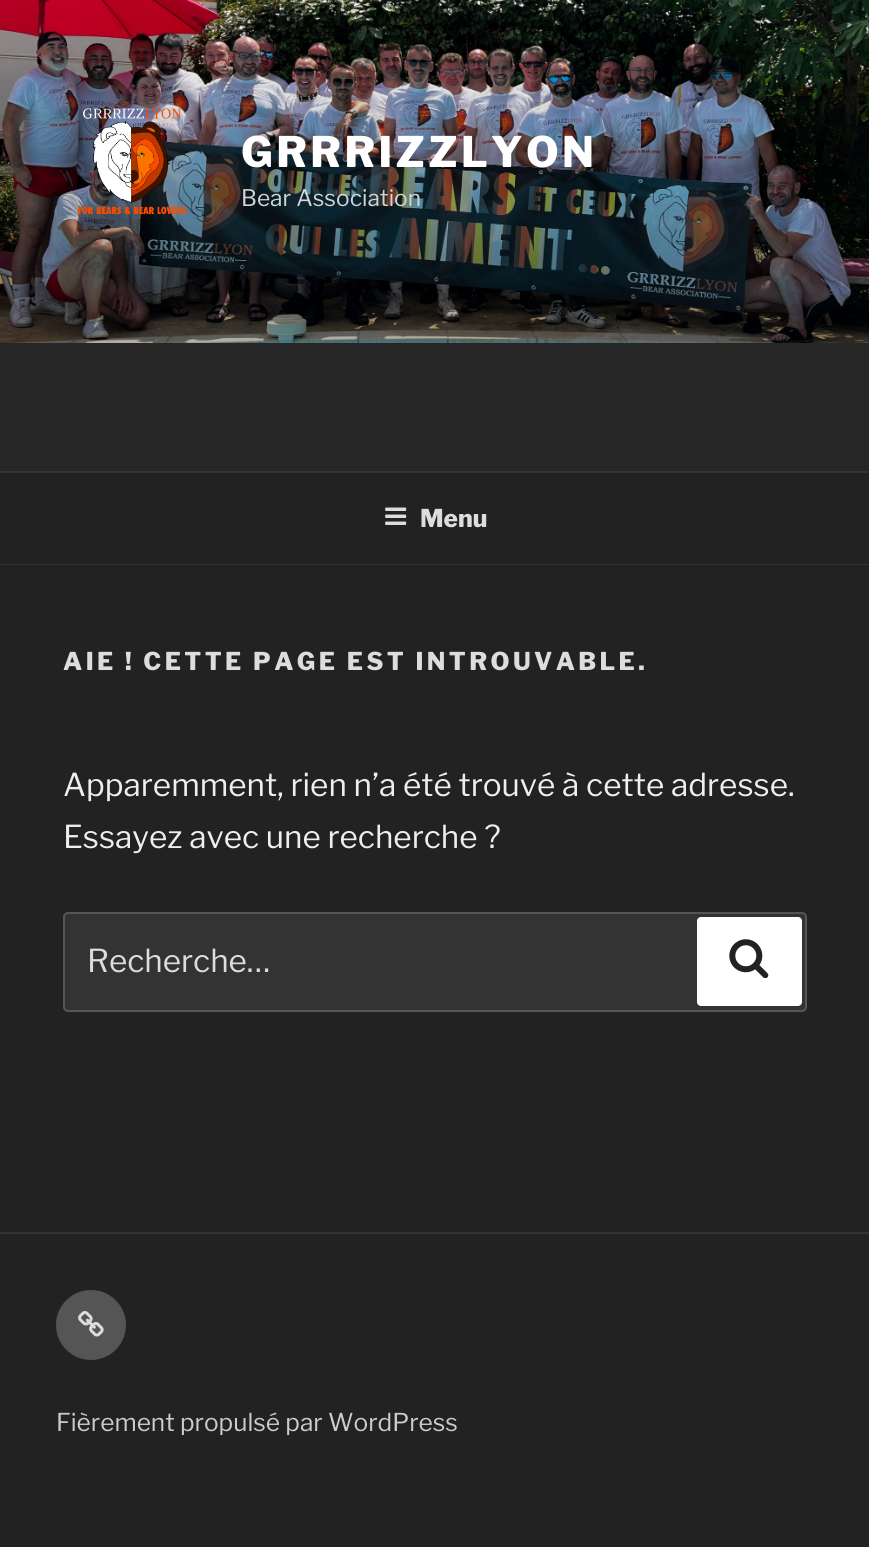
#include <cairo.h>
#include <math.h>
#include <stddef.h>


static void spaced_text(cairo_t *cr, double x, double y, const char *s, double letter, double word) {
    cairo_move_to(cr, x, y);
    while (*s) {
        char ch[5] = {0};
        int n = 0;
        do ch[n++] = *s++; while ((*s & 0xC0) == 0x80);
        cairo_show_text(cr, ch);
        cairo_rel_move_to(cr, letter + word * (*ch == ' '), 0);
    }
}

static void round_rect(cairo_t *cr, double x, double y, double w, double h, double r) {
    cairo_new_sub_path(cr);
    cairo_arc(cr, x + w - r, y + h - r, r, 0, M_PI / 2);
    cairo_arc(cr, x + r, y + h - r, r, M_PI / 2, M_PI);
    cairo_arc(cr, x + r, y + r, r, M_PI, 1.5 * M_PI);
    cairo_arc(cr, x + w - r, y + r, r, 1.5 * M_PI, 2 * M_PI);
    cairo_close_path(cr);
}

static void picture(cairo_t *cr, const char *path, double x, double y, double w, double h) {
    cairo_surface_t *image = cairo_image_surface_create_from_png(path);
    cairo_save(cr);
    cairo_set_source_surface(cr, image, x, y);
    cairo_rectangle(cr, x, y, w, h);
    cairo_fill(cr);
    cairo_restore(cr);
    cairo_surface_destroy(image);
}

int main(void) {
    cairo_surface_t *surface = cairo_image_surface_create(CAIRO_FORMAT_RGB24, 869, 1547);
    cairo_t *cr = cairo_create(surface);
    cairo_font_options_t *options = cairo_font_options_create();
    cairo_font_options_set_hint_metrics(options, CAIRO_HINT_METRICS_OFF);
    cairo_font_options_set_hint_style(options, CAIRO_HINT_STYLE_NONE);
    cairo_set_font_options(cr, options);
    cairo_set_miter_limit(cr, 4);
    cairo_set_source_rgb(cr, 0.133, 0.133, 0.133);
    cairo_paint(cr);
    cairo_set_source_rgb(cr, 0.149, 0.149, 0.149);
    cairo_rectangle(cr, 0, 343, 869, 128);
    cairo_fill(cr);
    picture(cr, "img1.png", 0, 0, 869, 343);
    picture(cr, "img2.png", 78, 108, 108, 107);
    cairo_select_font_face(cr, "Libre Franklin Thin", CAIRO_FONT_SLANT_NORMAL, CAIRO_FONT_WEIGHT_NORMAL);
    cairo_set_font_size(cr, 42);
    cairo_set_source_rgb(cr, 1, 1, 1);
    spaced_text(cr, 241, 167, "GRRRIZZLYON", 3.4, 0);
    cairo_select_font_face(cr, "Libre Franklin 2 Thin", CAIRO_FONT_SLANT_NORMAL, CAIRO_FONT_WEIGHT_NORMAL);
    cairo_set_font_size(cr, 22.75);
    cairo_set_source_rgb(cr, 0.824, 0.835, 0.839);
    cairo_move_to(cr, 241, 206);
    cairo_show_text(cr, "Bear Association");
    cairo_set_source_rgb(cr, 0.2, 0.2, 0.2);
    cairo_rectangle(cr, 0, 471, 869, 2);
    cairo_fill(cr);
    cairo_rectangle(cr, 0, 564, 869, 1);
    cairo_fill(cr);
    picture(cr, "img3.png", 385, 507, 22, 18);
    cairo_select_font_face(cr, "Libre Franklin Thin", CAIRO_FONT_SLANT_NORMAL, CAIRO_FONT_WEIGHT_NORMAL);
    cairo_set_font_size(cr, 24.5);
    cairo_set_source_rgb(cr, 0.867, 0.867, 0.867);
    cairo_move_to(cr, 420, 527);
    cairo_show_text(cr, "Menu");
    spaced_text(cr, 63, 670, "AIE ! CETTE PAGE EST INTROUVABLE.", 3.4, 0);
    cairo_select_font_face(cr, "Libre Franklin 2 Thin", CAIRO_FONT_SLANT_NORMAL, CAIRO_FONT_WEIGHT_NORMAL);
    cairo_set_font_size(cr, 31.5);
    cairo_set_source_rgb(cr, 0.933, 0.933, 0.933);
    cairo_move_to(cr, 63, 796);
    cairo_show_text(cr, "Apparemment, rien n’a été trouvé à cette adresse.");
    cairo_move_to(cr, 63, 848);
    cairo_show_text(cr, "Essayez avec une recherche ?");
    cairo_set_source_rgb(cr, 0.2, 0.2, 0.2);
    round_rect(cr, 64, 913, 742, 98, 4);
    cairo_fill_preserve(cr);
    cairo_set_source_rgb(cr, 0.333, 0.333, 0.333);
    cairo_stroke(cr);
    cairo_set_source_rgb(cr, 0.867, 0.867, 0.867);
    cairo_move_to(cr, 87, 972);
    cairo_show_text(cr, "Recherche…");
    cairo_set_source_rgb(cr, 1, 1, 1);
    round_rect(cr, 697, 917, 105, 89, 4);
    cairo_fill(cr);
    picture(cr, "img4.png", 729, 939, 40, 39);
    cairo_set_source_rgb(cr, 0.2, 0.2, 0.2);
    cairo_rectangle(cr, 0, 1232, 869, 2);
    cairo_fill(cr);
    cairo_set_source_rgb(cr, 0.333, 0.333, 0.333);
    cairo_arc(cr, 91, 1325, 35, 0, 2 * M_PI);
    cairo_fill(cr);
    picture(cr, "img5.png", 78, 1311, 26, 26);
    cairo_set_font_size(cr, 24.5);
    cairo_set_source_rgb(cr, 0.8, 0.8, 0.8);
    cairo_move_to(cr, 56, 1431);
    cairo_show_text(cr, "Fièrement propulsé par WordPress");
    cairo_surface_write_to_png(surface, "page.png");
    cairo_font_options_destroy(options);
    cairo_destroy(cr);
    cairo_surface_destroy(surface);
    return 0;
}
